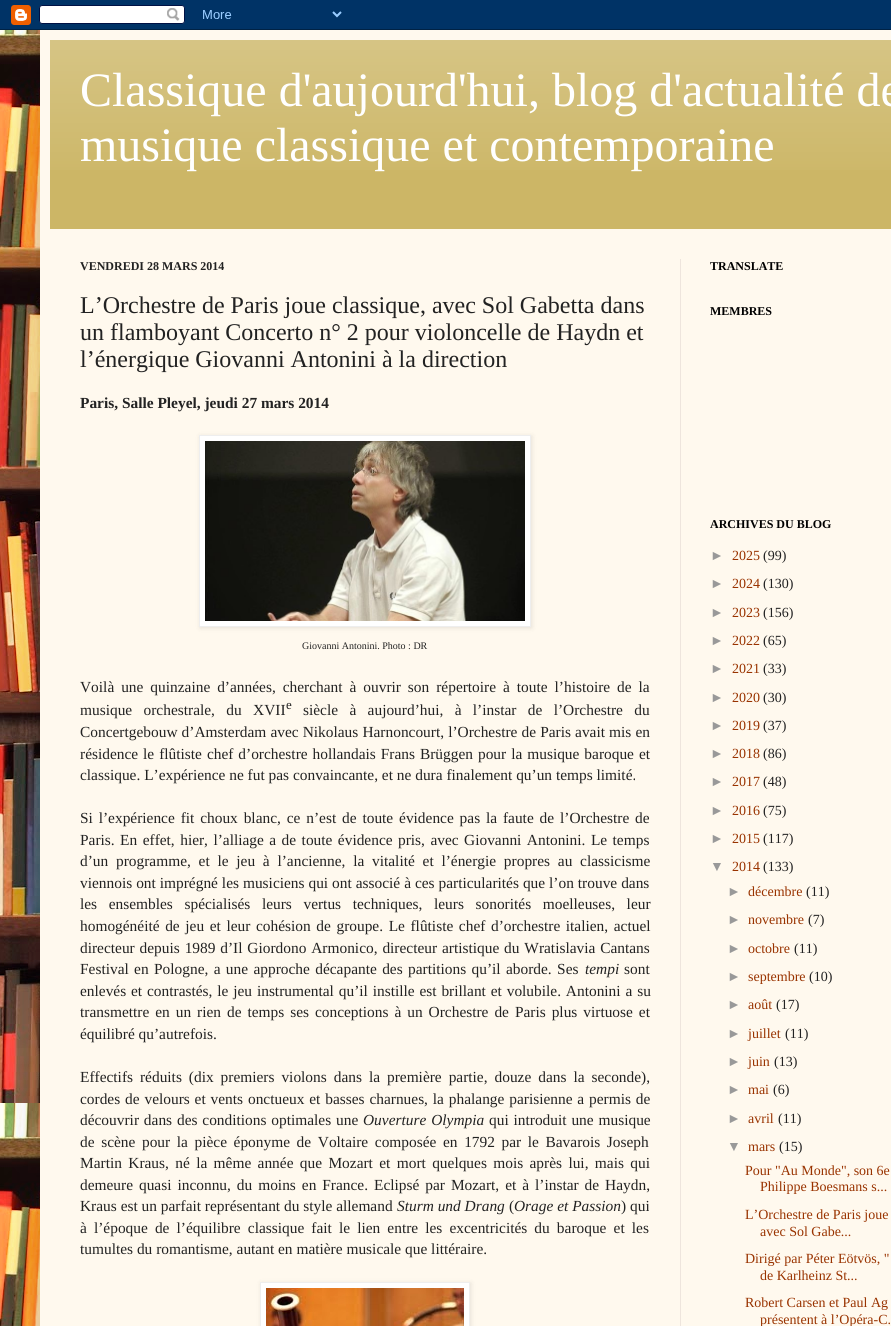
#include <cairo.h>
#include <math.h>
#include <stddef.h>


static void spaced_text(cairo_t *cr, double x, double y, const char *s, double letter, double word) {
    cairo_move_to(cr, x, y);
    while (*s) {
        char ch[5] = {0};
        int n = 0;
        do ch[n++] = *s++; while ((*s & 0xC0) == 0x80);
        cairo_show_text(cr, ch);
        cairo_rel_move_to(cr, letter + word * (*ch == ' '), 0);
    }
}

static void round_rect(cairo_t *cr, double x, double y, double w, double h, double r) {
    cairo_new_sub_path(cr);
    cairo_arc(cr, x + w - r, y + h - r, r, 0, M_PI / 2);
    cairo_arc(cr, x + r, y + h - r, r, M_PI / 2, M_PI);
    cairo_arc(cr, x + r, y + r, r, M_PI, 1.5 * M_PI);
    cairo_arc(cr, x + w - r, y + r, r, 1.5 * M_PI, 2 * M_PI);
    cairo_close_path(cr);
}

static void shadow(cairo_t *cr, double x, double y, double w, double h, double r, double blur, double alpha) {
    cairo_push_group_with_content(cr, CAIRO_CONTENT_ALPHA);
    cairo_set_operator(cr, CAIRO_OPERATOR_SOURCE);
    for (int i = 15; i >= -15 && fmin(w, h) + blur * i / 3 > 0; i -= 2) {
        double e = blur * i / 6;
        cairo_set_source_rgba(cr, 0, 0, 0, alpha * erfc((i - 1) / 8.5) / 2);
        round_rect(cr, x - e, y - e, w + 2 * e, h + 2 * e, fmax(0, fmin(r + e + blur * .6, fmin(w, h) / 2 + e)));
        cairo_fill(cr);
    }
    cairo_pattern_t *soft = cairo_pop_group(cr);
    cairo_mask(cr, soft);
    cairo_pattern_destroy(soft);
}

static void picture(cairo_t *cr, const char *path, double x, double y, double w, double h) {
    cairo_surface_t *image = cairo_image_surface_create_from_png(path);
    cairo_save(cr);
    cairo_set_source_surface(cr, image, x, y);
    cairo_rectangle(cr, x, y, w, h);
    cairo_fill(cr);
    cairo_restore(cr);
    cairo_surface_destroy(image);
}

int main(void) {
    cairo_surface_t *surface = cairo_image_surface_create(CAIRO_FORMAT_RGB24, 891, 1326);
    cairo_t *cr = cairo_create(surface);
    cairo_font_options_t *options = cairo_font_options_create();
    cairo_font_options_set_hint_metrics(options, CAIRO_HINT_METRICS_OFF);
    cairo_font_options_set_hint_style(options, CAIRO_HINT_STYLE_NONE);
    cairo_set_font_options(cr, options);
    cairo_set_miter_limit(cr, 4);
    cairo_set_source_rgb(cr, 1, 1, 1);
    cairo_paint(cr);
    picture(cr, "img2.png", 0, 30, 40, 1296);
    cairo_set_source_rgb(cr, 0, 0, 0);
    shadow(cr, 40, 30, 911, 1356, 0, 20, 0.15);
    picture(cr, "img1.png", 0, 0, 891, 30);
    cairo_set_source_rgb(cr, 1, 0.976, 0.933);
    cairo_rectangle(cr, 40, 30, 851, 1296);
    cairo_fill(cr);
    cairo_set_source_rgb(cr, 0.8, 0.714, 0.4);
    cairo_rectangle(cr, 50, 40, 841, 189);
    cairo_fill(cr);
    picture(cr, "img3.png", 50, 40, 841, 130);
    cairo_select_font_face(cr, "Liberation Serif", CAIRO_FONT_SLANT_NORMAL, CAIRO_FONT_WEIGHT_NORMAL);
    cairo_set_font_size(cr, 48);
    cairo_set_source_rgb(cr, 1, 1, 1);
    cairo_move_to(cr, 80, 106);
    cairo_show_text(cr, "Classique d'aujourd'hui, blog d'actualité de");
    cairo_move_to(cr, 80, 161);
    cairo_show_text(cr, "musique classique et contemporaine");
    cairo_set_source_rgb(cr, 0.933, 0.898, 0.867);
    cairo_rectangle(cr, 680, 259, 1, 1067);
    cairo_fill(cr);
    cairo_select_font_face(cr, "Liberation Serif", CAIRO_FONT_SLANT_NORMAL, CAIRO_FONT_WEIGHT_BOLD);
    cairo_set_font_size(cr, 12);
    cairo_set_source_rgb(cr, 0.133, 0.133, 0.133);
    cairo_move_to(cr, 80, 270);
    cairo_show_text(cr, "VENDREDI 28 MARS 2014");
    cairo_select_font_face(cr, "Liberation Serif", CAIRO_FONT_SLANT_NORMAL, CAIRO_FONT_WEIGHT_NORMAL);
    cairo_set_font_size(cr, 24);
    cairo_move_to(cr, 80, 313);
    cairo_show_text(cr, "L’Orchestre de Paris joue classique, avec Sol Gabetta dans");
    cairo_move_to(cr, 80, 340);
    cairo_show_text(cr, "un flamboyant Concerto n° 2 pour violoncelle de Haydn et");
    cairo_move_to(cr, 80, 367);
    cairo_show_text(cr, "l’énergique Giovanni Antonini à la direction");
    cairo_select_font_face(cr, "Liberation Serif", CAIRO_FONT_SLANT_NORMAL, CAIRO_FONT_WEIGHT_BOLD);
    cairo_set_font_size(cr, 15.4);
    cairo_move_to(cr, 80, 408);
    cairo_show_text(cr, "Paris, Salle Pleyel, jeudi 27 mars 2014");
    cairo_set_source_rgb(cr, 0, 0, 0);
    shadow(cr, 200, 436, 332, 192, 0, 2.5, 0.1);
    cairo_set_source_rgb(cr, 1, 1, 1);
    cairo_rectangle(cr, 199.5, 435.5, 331, 191);
    cairo_fill_preserve(cr);
    cairo_set_source_rgb(cr, 0.933, 0.933, 0.933);
    cairo_set_line_width(cr, 1);
    cairo_stroke(cr);
    picture(cr, "img4.png", 205, 441, 320, 180);
    cairo_select_font_face(cr, "Liberation Serif", CAIRO_FONT_SLANT_NORMAL, CAIRO_FONT_WEIGHT_NORMAL);
    cairo_set_font_size(cr, 10);
    cairo_set_source_rgb(cr, 0.133, 0.133, 0.133);
    cairo_move_to(cr, 302, 649);
    cairo_show_text(cr, "Giovanni Antonini. Photo : DR");
    cairo_set_font_size(cr, 15.4);
    spaced_text(cr, 80, 692, "Voilà une quinzaine d’années, cherchant à ouvrir son répertoire à toute l’histoire de la", 0, 3.1);
    spaced_text(cr, 80, 715, "musique orchestrale, du XVII", 0, 7.5);
    cairo_set_font_size(cr, 13);
    cairo_move_to(cr, 286, 709);
    cairo_show_text(cr, "e");
    cairo_set_font_size(cr, 15.4);
    spaced_text(cr, 303, 715, "siècle à aujourd’hui, à l’instar de l’Orchestre du", 0, 7.5);
    spaced_text(cr, 80, 737, "Concertgebouw d’Amsterdam avec Nikolaus Harnoncourt, l’Orchestre de Paris avait mis en", 0, 0.25);
    spaced_text(cr, 80, 759, "résidence le flûtiste chef d’orchestre hollandais Frans Brüggen pour la musique baroque et", 0, 1.1);
    cairo_move_to(cr, 80, 780);
    cairo_show_text(cr, "classique. L’expérience ne fut pas convaincante, et ne dura finalement qu’un temps limité.");
    spaced_text(cr, 80, 823, "Si l’expérience fit choux blanc, ce n’est de toute évidence pas la faute de l’Orchestre de", 0, 2);
    spaced_text(cr, 80, 845, "Paris. En effet, hier, l’alliage a de toute évidence pris, avec Giovanni Antonini. Le temps", 0, 1.6);
    spaced_text(cr, 80, 866, "d’un programme, et le jeu à l’ancienne, la vitalité et l’énergie propres au classicisme", 0, 3.9);
    spaced_text(cr, 80, 888, "viennois ont imprégné les musiciens qui ont associé à ces particularités que l’on trouve dans", 0, 0.1);
    spaced_text(cr, 80, 909, "les ensembles spécialisés leurs vertus techniques, leurs sonorités moelleuses, leur", 0, 7.75);
    spaced_text(cr, 80, 931, "homogénéité de jeu et leur cohésion de groupe. Le flûtiste chef d’orchestre italien, actuel", 0, 1.75);
    spaced_text(cr, 80, 953, "directeur depuis 1989 d’Il Giordono Armonico, directeur artistique du Wratislavia Cantans", 0, 1);
    spaced_text(cr, 80, 974, "Festival en Pologne, a une approche décapante des partitions qu’il aborde. Ses", 0, 1.5);
    cairo_select_font_face(cr, "Liberation Serif", CAIRO_FONT_SLANT_ITALIC, CAIRO_FONT_WEIGHT_NORMAL);
    cairo_move_to(cr, 585, 974);
    cairo_show_text(cr, "tempi");
    cairo_select_font_face(cr, "Liberation Serif", CAIRO_FONT_SLANT_NORMAL, CAIRO_FONT_WEIGHT_NORMAL);
    cairo_move_to(cr, 624, 974);
    cairo_show_text(cr, "sont");
    spaced_text(cr, 80, 996, "enlevés et contrastés, le jeu instrumental qu’il instille est brillant et volubile. Antonini a su", 0, 1);
    spaced_text(cr, 80, 1017, "transmettre en un rien de temps ses conceptions à un Orchestre de Paris plus virtuose et", 0, 2.1);
    cairo_move_to(cr, 80, 1039);
    cairo_show_text(cr, "équilibré qu’autrefois.");
    spaced_text(cr, 80, 1082, "Effectifs réduits (dix premiers violons dans la première partie, douze dans la seconde),", 0, 3.1);
    spaced_text(cr, 80, 1104, "cordes de velours et vents onctueux et basses charnues, la phalange parisienne a permis de", 0, 1);
    spaced_text(cr, 80, 1125, "découvrir dans des conditions optimales une", 0, 1);
    cairo_select_font_face(cr, "Liberation Serif", CAIRO_FONT_SLANT_ITALIC, CAIRO_FONT_WEIGHT_NORMAL);
    spaced_text(cr, 363, 1125, "Ouverture Olympia", 0, 1);
    cairo_select_font_face(cr, "Liberation Serif", CAIRO_FONT_SLANT_NORMAL, CAIRO_FONT_WEIGHT_NORMAL);
    spaced_text(cr, 489, 1125, "qui introduit une musique", 0, 1);
    spaced_text(cr, 80, 1147, "de scène pour la pièce éponyme de Voltaire composée en 1792 par le Bavarois Joseph", 0, 2.75);
    spaced_text(cr, 80, 1168, "Martin Kraus, né la même année que Mozart et mort quelques mois après lui, mais qui", 0, 2.5);
    spaced_text(cr, 80, 1190, "demeure quasi inconnu, du moins en France. Eclipsé par Mozart, et à l’instar de Haydn,", 0, 2.1);
    cairo_move_to(cr, 80, 1211);
    cairo_show_text(cr, "Kraus est un parfait représentant du style allemand");
    cairo_select_font_face(cr, "Liberation Serif", CAIRO_FONT_SLANT_ITALIC, CAIRO_FONT_WEIGHT_NORMAL);
    cairo_move_to(cr, 397, 1211);
    cairo_show_text(cr, "Sturm und Drang");
    cairo_select_font_face(cr, "Liberation Serif", CAIRO_FONT_SLANT_NORMAL, CAIRO_FONT_WEIGHT_NORMAL);
    cairo_move_to(cr, 509, 1211);
    cairo_show_text(cr, "(");
    cairo_select_font_face(cr, "Liberation Serif", CAIRO_FONT_SLANT_ITALIC, CAIRO_FONT_WEIGHT_NORMAL);
    cairo_move_to(cr, 514, 1211);
    cairo_show_text(cr, "Orage et Passion");
    cairo_select_font_face(cr, "Liberation Serif", CAIRO_FONT_SLANT_NORMAL, CAIRO_FONT_WEIGHT_NORMAL);
    cairo_move_to(cr, 621, 1211);
    cairo_show_text(cr, ") qui");
    spaced_text(cr, 80, 1233, "à l’époque de l’équilibre classique fait le lien entre les excentricités du baroque et les", 0, 3.25);
    cairo_move_to(cr, 80, 1254);
    cairo_show_text(cr, "tumultes du romantisme, autant en matière musicale que littéraire.");
    cairo_set_source_rgb(cr, 0, 0, 0);
    shadow(cr, 261, 1283, 210, 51, 0, 2.5, 0.1);
    cairo_set_source_rgb(cr, 1, 1, 1);
    cairo_rectangle(cr, 260.5, 1282.5, 209, 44);
    cairo_fill_preserve(cr);
    cairo_set_source_rgb(cr, 0.933, 0.933, 0.933);
    cairo_stroke(cr);
    picture(cr, "img5.png", 266, 1288, 198, 38);
    cairo_select_font_face(cr, "Liberation Serif", CAIRO_FONT_SLANT_NORMAL, CAIRO_FONT_WEIGHT_BOLD);
    cairo_set_font_size(cr, 12);
    cairo_set_source_rgb(cr, 0, 0, 0);
    cairo_move_to(cr, 710, 270);
    cairo_show_text(cr, "TRANSLATE");
    cairo_move_to(cr, 710, 315);
    cairo_show_text(cr, "MEMBRES");
    cairo_move_to(cr, 710, 528);
    cairo_show_text(cr, "ARCHIVES DU BLOG");
    cairo_select_font_face(cr, "Liberation Sans", CAIRO_FONT_SLANT_NORMAL, CAIRO_FONT_WEIGHT_NORMAL);
    cairo_set_font_size(cr, 14);
    cairo_set_source_rgb(cr, 0.6, 0.6, 0.6);
    cairo_move_to(cr, 710, 560);
    cairo_show_text(cr, "►");
    cairo_select_font_face(cr, "Liberation Serif", CAIRO_FONT_SLANT_NORMAL, CAIRO_FONT_WEIGHT_NORMAL);
    cairo_set_source_rgb(cr, 0.6, 0.2, 0);
    cairo_move_to(cr, 732, 560);
    cairo_show_text(cr, "2025");
    cairo_set_source_rgb(cr, 0.133, 0.133, 0.133);
    cairo_move_to(cr, 763, 560);
    cairo_show_text(cr, "(99)");
    cairo_select_font_face(cr, "Liberation Sans", CAIRO_FONT_SLANT_NORMAL, CAIRO_FONT_WEIGHT_NORMAL);
    cairo_set_source_rgb(cr, 0.6, 0.6, 0.6);
    cairo_move_to(cr, 710, 588);
    cairo_show_text(cr, "►");
    cairo_select_font_face(cr, "Liberation Serif", CAIRO_FONT_SLANT_NORMAL, CAIRO_FONT_WEIGHT_NORMAL);
    cairo_set_source_rgb(cr, 0.6, 0.2, 0);
    cairo_move_to(cr, 732, 588);
    cairo_show_text(cr, "2024");
    cairo_set_source_rgb(cr, 0.133, 0.133, 0.133);
    cairo_move_to(cr, 763, 588);
    cairo_show_text(cr, "(130)");
    cairo_select_font_face(cr, "Liberation Sans", CAIRO_FONT_SLANT_NORMAL, CAIRO_FONT_WEIGHT_NORMAL);
    cairo_set_source_rgb(cr, 0.6, 0.6, 0.6);
    cairo_move_to(cr, 710, 617);
    cairo_show_text(cr, "►");
    cairo_select_font_face(cr, "Liberation Serif", CAIRO_FONT_SLANT_NORMAL, CAIRO_FONT_WEIGHT_NORMAL);
    cairo_set_source_rgb(cr, 0.6, 0.2, 0);
    cairo_move_to(cr, 732, 617);
    cairo_show_text(cr, "2023");
    cairo_set_source_rgb(cr, 0.133, 0.133, 0.133);
    cairo_move_to(cr, 763, 617);
    cairo_show_text(cr, "(156)");
    cairo_select_font_face(cr, "Liberation Sans", CAIRO_FONT_SLANT_NORMAL, CAIRO_FONT_WEIGHT_NORMAL);
    cairo_set_source_rgb(cr, 0.6, 0.6, 0.6);
    cairo_move_to(cr, 710, 645);
    cairo_show_text(cr, "►");
    cairo_select_font_face(cr, "Liberation Serif", CAIRO_FONT_SLANT_NORMAL, CAIRO_FONT_WEIGHT_NORMAL);
    cairo_set_source_rgb(cr, 0.6, 0.2, 0);
    cairo_move_to(cr, 732, 645);
    cairo_show_text(cr, "2022");
    cairo_set_source_rgb(cr, 0.133, 0.133, 0.133);
    cairo_move_to(cr, 763, 645);
    cairo_show_text(cr, "(65)");
    cairo_select_font_face(cr, "Liberation Sans", CAIRO_FONT_SLANT_NORMAL, CAIRO_FONT_WEIGHT_NORMAL);
    cairo_set_source_rgb(cr, 0.6, 0.6, 0.6);
    cairo_move_to(cr, 710, 673);
    cairo_show_text(cr, "►");
    cairo_select_font_face(cr, "Liberation Serif", CAIRO_FONT_SLANT_NORMAL, CAIRO_FONT_WEIGHT_NORMAL);
    cairo_set_source_rgb(cr, 0.6, 0.2, 0);
    cairo_move_to(cr, 732, 673);
    cairo_show_text(cr, "2021");
    cairo_set_source_rgb(cr, 0.133, 0.133, 0.133);
    cairo_move_to(cr, 763, 673);
    cairo_show_text(cr, "(33)");
    cairo_select_font_face(cr, "Liberation Sans", CAIRO_FONT_SLANT_NORMAL, CAIRO_FONT_WEIGHT_NORMAL);
    cairo_set_source_rgb(cr, 0.6, 0.6, 0.6);
    cairo_move_to(cr, 710, 702);
    cairo_show_text(cr, "►");
    cairo_select_font_face(cr, "Liberation Serif", CAIRO_FONT_SLANT_NORMAL, CAIRO_FONT_WEIGHT_NORMAL);
    cairo_set_source_rgb(cr, 0.6, 0.2, 0);
    cairo_move_to(cr, 732, 702);
    cairo_show_text(cr, "2020");
    cairo_set_source_rgb(cr, 0.133, 0.133, 0.133);
    cairo_move_to(cr, 763, 702);
    cairo_show_text(cr, "(30)");
    cairo_select_font_face(cr, "Liberation Sans", CAIRO_FONT_SLANT_NORMAL, CAIRO_FONT_WEIGHT_NORMAL);
    cairo_set_source_rgb(cr, 0.6, 0.6, 0.6);
    cairo_move_to(cr, 710, 730);
    cairo_show_text(cr, "►");
    cairo_select_font_face(cr, "Liberation Serif", CAIRO_FONT_SLANT_NORMAL, CAIRO_FONT_WEIGHT_NORMAL);
    cairo_set_source_rgb(cr, 0.6, 0.2, 0);
    cairo_move_to(cr, 732, 730);
    cairo_show_text(cr, "2019");
    cairo_set_source_rgb(cr, 0.133, 0.133, 0.133);
    cairo_move_to(cr, 763, 730);
    cairo_show_text(cr, "(37)");
    cairo_select_font_face(cr, "Liberation Sans", CAIRO_FONT_SLANT_NORMAL, CAIRO_FONT_WEIGHT_NORMAL);
    cairo_set_source_rgb(cr, 0.6, 0.6, 0.6);
    cairo_move_to(cr, 710, 758);
    cairo_show_text(cr, "►");
    cairo_select_font_face(cr, "Liberation Serif", CAIRO_FONT_SLANT_NORMAL, CAIRO_FONT_WEIGHT_NORMAL);
    cairo_set_source_rgb(cr, 0.6, 0.2, 0);
    cairo_move_to(cr, 732, 758);
    cairo_show_text(cr, "2018");
    cairo_set_source_rgb(cr, 0.133, 0.133, 0.133);
    cairo_move_to(cr, 763, 758);
    cairo_show_text(cr, "(86)");
    cairo_select_font_face(cr, "Liberation Sans", CAIRO_FONT_SLANT_NORMAL, CAIRO_FONT_WEIGHT_NORMAL);
    cairo_set_source_rgb(cr, 0.6, 0.6, 0.6);
    cairo_move_to(cr, 710, 786);
    cairo_show_text(cr, "►");
    cairo_select_font_face(cr, "Liberation Serif", CAIRO_FONT_SLANT_NORMAL, CAIRO_FONT_WEIGHT_NORMAL);
    cairo_set_source_rgb(cr, 0.6, 0.2, 0);
    cairo_move_to(cr, 732, 786);
    cairo_show_text(cr, "2017");
    cairo_set_source_rgb(cr, 0.133, 0.133, 0.133);
    cairo_move_to(cr, 763, 786);
    cairo_show_text(cr, "(48)");
    cairo_select_font_face(cr, "Liberation Sans", CAIRO_FONT_SLANT_NORMAL, CAIRO_FONT_WEIGHT_NORMAL);
    cairo_set_source_rgb(cr, 0.6, 0.6, 0.6);
    cairo_move_to(cr, 710, 815);
    cairo_show_text(cr, "►");
    cairo_select_font_face(cr, "Liberation Serif", CAIRO_FONT_SLANT_NORMAL, CAIRO_FONT_WEIGHT_NORMAL);
    cairo_set_source_rgb(cr, 0.6, 0.2, 0);
    cairo_move_to(cr, 732, 815);
    cairo_show_text(cr, "2016");
    cairo_set_source_rgb(cr, 0.133, 0.133, 0.133);
    cairo_move_to(cr, 763, 815);
    cairo_show_text(cr, "(75)");
    cairo_select_font_face(cr, "Liberation Sans", CAIRO_FONT_SLANT_NORMAL, CAIRO_FONT_WEIGHT_NORMAL);
    cairo_set_source_rgb(cr, 0.6, 0.6, 0.6);
    cairo_move_to(cr, 710, 843);
    cairo_show_text(cr, "►");
    cairo_select_font_face(cr, "Liberation Serif", CAIRO_FONT_SLANT_NORMAL, CAIRO_FONT_WEIGHT_NORMAL);
    cairo_set_source_rgb(cr, 0.6, 0.2, 0);
    cairo_move_to(cr, 732, 843);
    cairo_show_text(cr, "2015");
    cairo_set_source_rgb(cr, 0.133, 0.133, 0.133);
    cairo_move_to(cr, 763, 843);
    cairo_show_text(cr, "(117)");
    cairo_select_font_face(cr, "Liberation Sans", CAIRO_FONT_SLANT_NORMAL, CAIRO_FONT_WEIGHT_NORMAL);
    cairo_set_source_rgb(cr, 0.6, 0.6, 0.6);
    cairo_move_to(cr, 710, 871);
    cairo_show_text(cr, "▼");
    cairo_select_font_face(cr, "Liberation Serif", CAIRO_FONT_SLANT_NORMAL, CAIRO_FONT_WEIGHT_NORMAL);
    cairo_set_source_rgb(cr, 0.6, 0.2, 0);
    cairo_move_to(cr, 732, 871);
    cairo_show_text(cr, "2014");
    cairo_set_source_rgb(cr, 0.133, 0.133, 0.133);
    cairo_move_to(cr, 763, 871);
    cairo_show_text(cr, "(133)");
    cairo_select_font_face(cr, "Liberation Sans", CAIRO_FONT_SLANT_NORMAL, CAIRO_FONT_WEIGHT_NORMAL);
    cairo_set_source_rgb(cr, 0.6, 0.6, 0.6);
    cairo_move_to(cr, 727, 896);
    cairo_show_text(cr, "►");
    cairo_select_font_face(cr, "Liberation Serif", CAIRO_FONT_SLANT_NORMAL, CAIRO_FONT_WEIGHT_NORMAL);
    cairo_set_source_rgb(cr, 0.6, 0.2, 0);
    cairo_move_to(cr, 748, 896);
    cairo_show_text(cr, "décembre");
    cairo_set_source_rgb(cr, 0.133, 0.133, 0.133);
    cairo_move_to(cr, 806, 896);
    cairo_show_text(cr, "(11)");
    cairo_select_font_face(cr, "Liberation Sans", CAIRO_FONT_SLANT_NORMAL, CAIRO_FONT_WEIGHT_NORMAL);
    cairo_set_source_rgb(cr, 0.6, 0.6, 0.6);
    cairo_move_to(cr, 727, 924);
    cairo_show_text(cr, "►");
    cairo_select_font_face(cr, "Liberation Serif", CAIRO_FONT_SLANT_NORMAL, CAIRO_FONT_WEIGHT_NORMAL);
    cairo_set_source_rgb(cr, 0.6, 0.2, 0);
    cairo_move_to(cr, 748, 924);
    cairo_show_text(cr, "novembre");
    cairo_set_source_rgb(cr, 0.133, 0.133, 0.133);
    cairo_move_to(cr, 808, 924);
    cairo_show_text(cr, "(7)");
    cairo_select_font_face(cr, "Liberation Sans", CAIRO_FONT_SLANT_NORMAL, CAIRO_FONT_WEIGHT_NORMAL);
    cairo_set_source_rgb(cr, 0.6, 0.6, 0.6);
    cairo_move_to(cr, 727, 953);
    cairo_show_text(cr, "►");
    cairo_select_font_face(cr, "Liberation Serif", CAIRO_FONT_SLANT_NORMAL, CAIRO_FONT_WEIGHT_NORMAL);
    cairo_set_source_rgb(cr, 0.6, 0.2, 0);
    cairo_move_to(cr, 748, 953);
    cairo_show_text(cr, "octobre");
    cairo_set_source_rgb(cr, 0.133, 0.133, 0.133);
    cairo_move_to(cr, 794, 953);
    cairo_show_text(cr, "(11)");
    cairo_select_font_face(cr, "Liberation Sans", CAIRO_FONT_SLANT_NORMAL, CAIRO_FONT_WEIGHT_NORMAL);
    cairo_set_source_rgb(cr, 0.6, 0.6, 0.6);
    cairo_move_to(cr, 727, 981);
    cairo_show_text(cr, "►");
    cairo_select_font_face(cr, "Liberation Serif", CAIRO_FONT_SLANT_NORMAL, CAIRO_FONT_WEIGHT_NORMAL);
    cairo_set_source_rgb(cr, 0.6, 0.2, 0);
    cairo_move_to(cr, 748, 981);
    cairo_show_text(cr, "septembre");
    cairo_set_source_rgb(cr, 0.133, 0.133, 0.133);
    cairo_move_to(cr, 809, 981);
    cairo_show_text(cr, "(10)");
    cairo_select_font_face(cr, "Liberation Sans", CAIRO_FONT_SLANT_NORMAL, CAIRO_FONT_WEIGHT_NORMAL);
    cairo_set_source_rgb(cr, 0.6, 0.6, 0.6);
    cairo_move_to(cr, 727, 1009);
    cairo_show_text(cr, "►");
    cairo_select_font_face(cr, "Liberation Serif", CAIRO_FONT_SLANT_NORMAL, CAIRO_FONT_WEIGHT_NORMAL);
    cairo_set_source_rgb(cr, 0.6, 0.2, 0);
    cairo_move_to(cr, 748, 1009);
    cairo_show_text(cr, "août");
    cairo_set_source_rgb(cr, 0.133, 0.133, 0.133);
    cairo_move_to(cr, 776, 1009);
    cairo_show_text(cr, "(17)");
    cairo_select_font_face(cr, "Liberation Sans", CAIRO_FONT_SLANT_NORMAL, CAIRO_FONT_WEIGHT_NORMAL);
    cairo_set_source_rgb(cr, 0.6, 0.6, 0.6);
    cairo_move_to(cr, 727, 1038);
    cairo_show_text(cr, "►");
    cairo_select_font_face(cr, "Liberation Serif", CAIRO_FONT_SLANT_NORMAL, CAIRO_FONT_WEIGHT_NORMAL);
    cairo_set_source_rgb(cr, 0.6, 0.2, 0);
    cairo_move_to(cr, 748, 1038);
    cairo_show_text(cr, "juillet");
    cairo_set_source_rgb(cr, 0.133, 0.133, 0.133);
    cairo_move_to(cr, 785, 1038);
    cairo_show_text(cr, "(11)");
    cairo_select_font_face(cr, "Liberation Sans", CAIRO_FONT_SLANT_NORMAL, CAIRO_FONT_WEIGHT_NORMAL);
    cairo_set_source_rgb(cr, 0.6, 0.6, 0.6);
    cairo_move_to(cr, 727, 1066);
    cairo_show_text(cr, "►");
    cairo_select_font_face(cr, "Liberation Serif", CAIRO_FONT_SLANT_NORMAL, CAIRO_FONT_WEIGHT_NORMAL);
    cairo_set_source_rgb(cr, 0.6, 0.2, 0);
    cairo_move_to(cr, 748, 1066);
    cairo_show_text(cr, "juin");
    cairo_set_source_rgb(cr, 0.133, 0.133, 0.133);
    cairo_move_to(cr, 774, 1066);
    cairo_show_text(cr, "(13)");
    cairo_select_font_face(cr, "Liberation Sans", CAIRO_FONT_SLANT_NORMAL, CAIRO_FONT_WEIGHT_NORMAL);
    cairo_set_source_rgb(cr, 0.6, 0.6, 0.6);
    cairo_move_to(cr, 727, 1094);
    cairo_show_text(cr, "►");
    cairo_select_font_face(cr, "Liberation Serif", CAIRO_FONT_SLANT_NORMAL, CAIRO_FONT_WEIGHT_NORMAL);
    cairo_set_source_rgb(cr, 0.6, 0.2, 0);
    cairo_move_to(cr, 748, 1094);
    cairo_show_text(cr, "mai");
    cairo_set_source_rgb(cr, 0.133, 0.133, 0.133);
    cairo_move_to(cr, 773, 1094);
    cairo_show_text(cr, "(6)");
    cairo_select_font_face(cr, "Liberation Sans", CAIRO_FONT_SLANT_NORMAL, CAIRO_FONT_WEIGHT_NORMAL);
    cairo_set_source_rgb(cr, 0.6, 0.6, 0.6);
    cairo_move_to(cr, 727, 1123);
    cairo_show_text(cr, "►");
    cairo_select_font_face(cr, "Liberation Serif", CAIRO_FONT_SLANT_NORMAL, CAIRO_FONT_WEIGHT_NORMAL);
    cairo_set_source_rgb(cr, 0.6, 0.2, 0);
    cairo_move_to(cr, 748, 1123);
    cairo_show_text(cr, "avril");
    cairo_set_source_rgb(cr, 0.133, 0.133, 0.133);
    cairo_move_to(cr, 778, 1123);
    cairo_show_text(cr, "(11)");
    cairo_select_font_face(cr, "Liberation Sans", CAIRO_FONT_SLANT_NORMAL, CAIRO_FONT_WEIGHT_NORMAL);
    cairo_set_source_rgb(cr, 0.6, 0.6, 0.6);
    cairo_move_to(cr, 727, 1151);
    cairo_show_text(cr, "▼");
    cairo_select_font_face(cr, "Liberation Serif", CAIRO_FONT_SLANT_NORMAL, CAIRO_FONT_WEIGHT_NORMAL);
    cairo_set_source_rgb(cr, 0.6, 0.2, 0);
    cairo_move_to(cr, 748, 1151);
    cairo_show_text(cr, "mars");
    cairo_set_source_rgb(cr, 0.133, 0.133, 0.133);
    cairo_move_to(cr, 779, 1151);
    cairo_show_text(cr, "(15)");
    cairo_set_source_rgb(cr, 0.6, 0.2, 0);
    cairo_move_to(cr, 745, 1175);
    cairo_show_text(cr, "Pour \"Au Monde\", son 6e");
    cairo_move_to(cr, 760, 1191);
    cairo_show_text(cr, "Philippe Boesmans s...");
    cairo_move_to(cr, 745, 1219);
    cairo_show_text(cr, "L’Orchestre de Paris joue");
    cairo_move_to(cr, 760, 1236);
    cairo_show_text(cr, "avec Sol Gabe...");
    cairo_move_to(cr, 745, 1263);
    cairo_show_text(cr, "Dirigé par Péter Eötvös, \"");
    cairo_move_to(cr, 760, 1280);
    cairo_show_text(cr, "de Karlheinz St...");
    cairo_move_to(cr, 745, 1307);
    cairo_show_text(cr, "Robert Carsen et Paul Ag");
    cairo_move_to(cr, 760, 1324);
    cairo_show_text(cr, "présentent à l’Opéra-C.");
    cairo_surface_write_to_png(surface, "page.png");
    cairo_font_options_destroy(options);
    cairo_destroy(cr);
    cairo_surface_destroy(surface);
    return 0;
}
